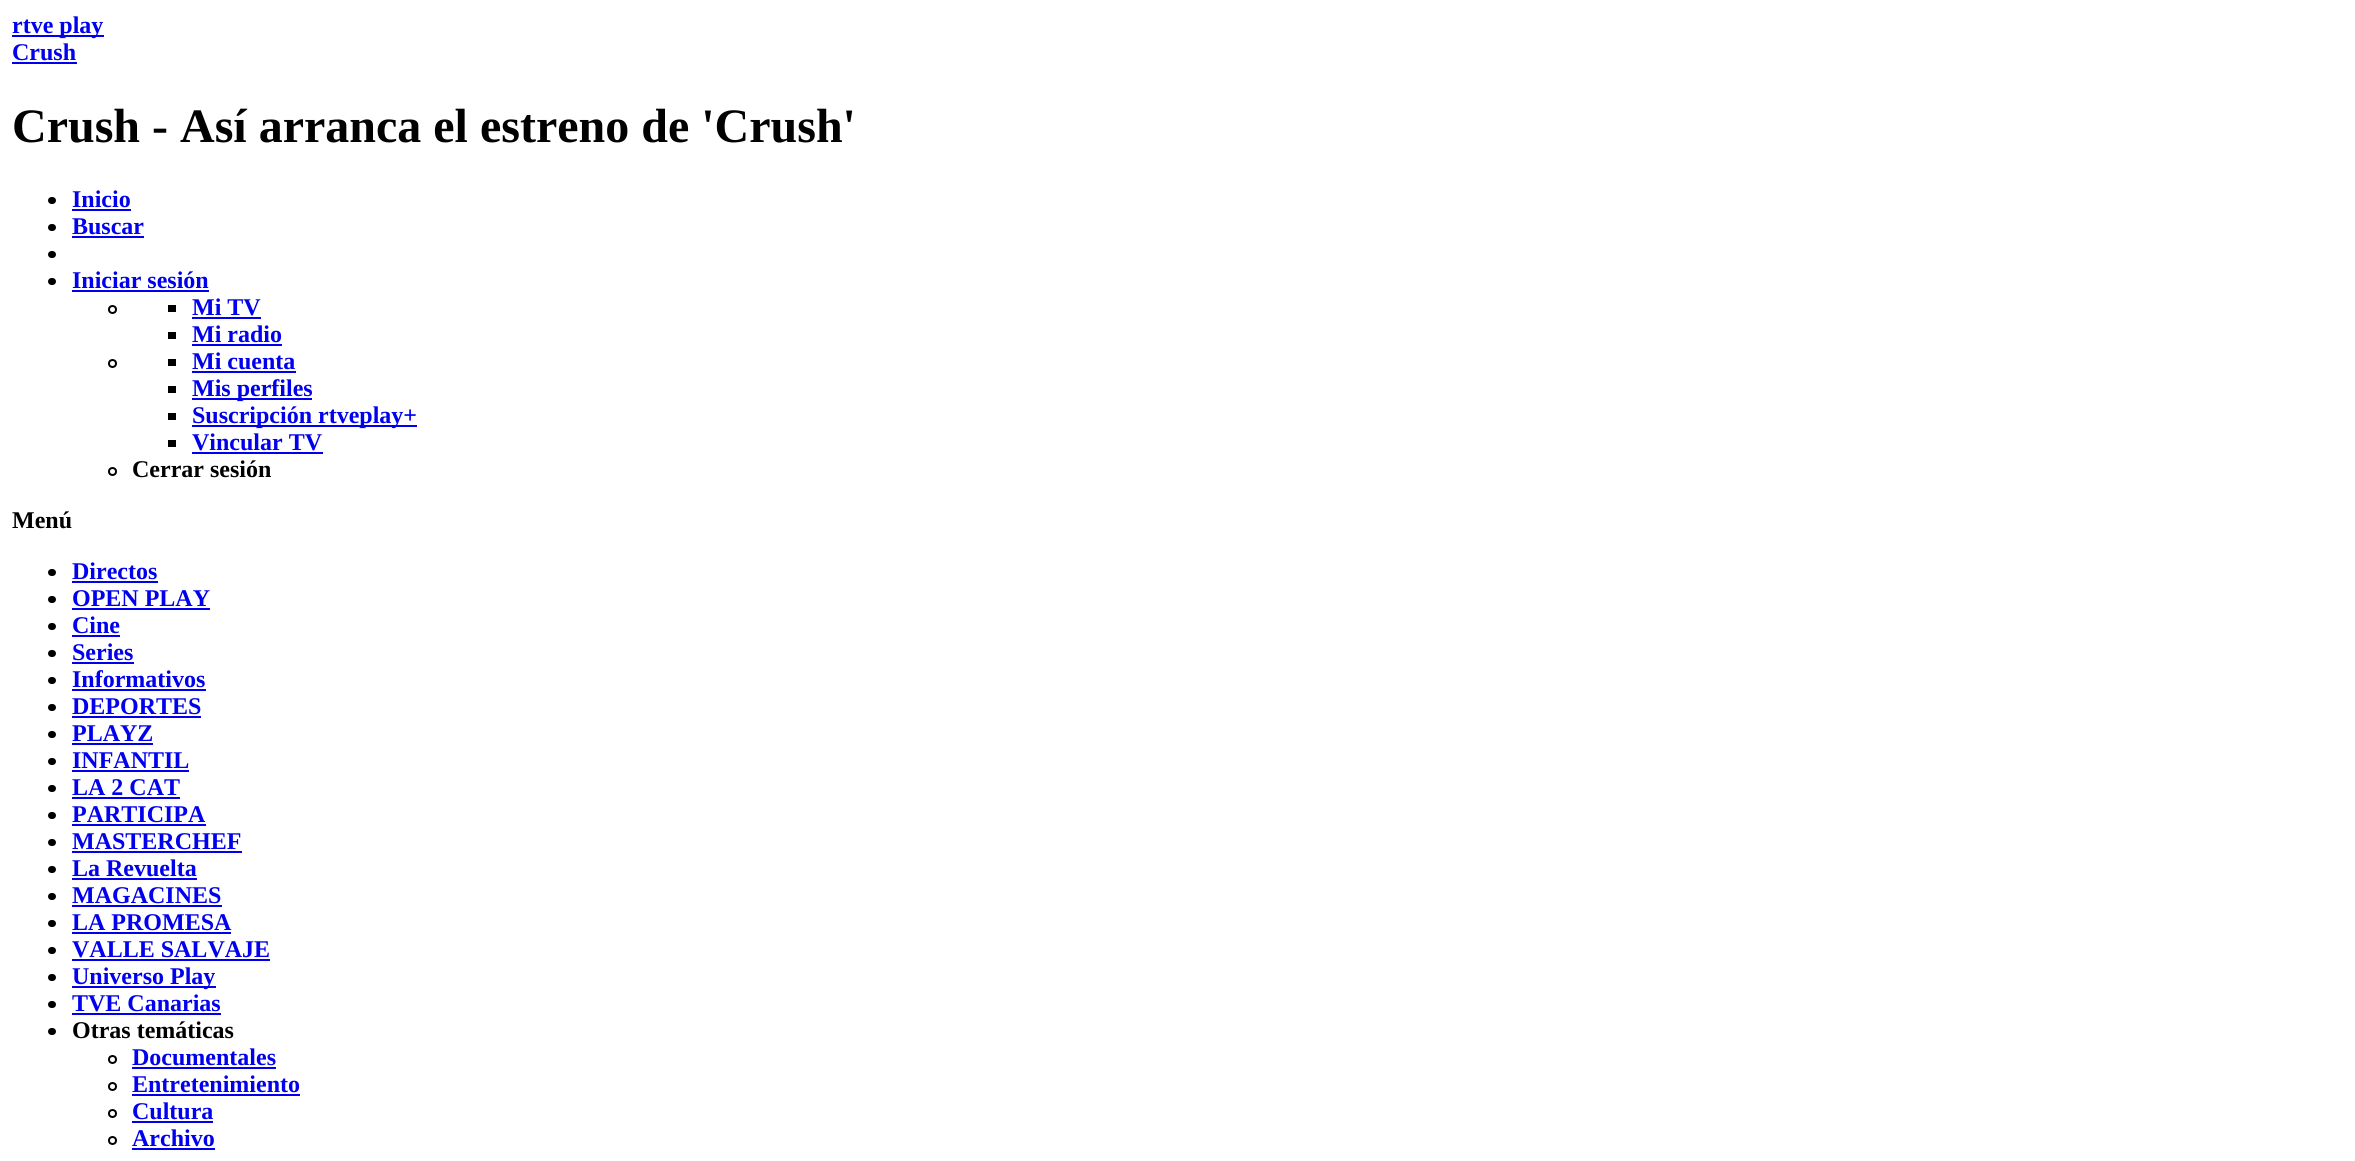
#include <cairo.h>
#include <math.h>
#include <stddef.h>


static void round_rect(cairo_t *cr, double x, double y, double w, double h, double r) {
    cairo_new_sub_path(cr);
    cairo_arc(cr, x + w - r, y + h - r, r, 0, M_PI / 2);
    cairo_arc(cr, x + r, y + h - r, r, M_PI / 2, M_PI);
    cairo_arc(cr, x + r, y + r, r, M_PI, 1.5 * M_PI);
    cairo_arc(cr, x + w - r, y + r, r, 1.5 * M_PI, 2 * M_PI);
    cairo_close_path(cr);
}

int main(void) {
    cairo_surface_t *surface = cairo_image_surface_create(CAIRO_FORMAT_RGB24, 2355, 1161);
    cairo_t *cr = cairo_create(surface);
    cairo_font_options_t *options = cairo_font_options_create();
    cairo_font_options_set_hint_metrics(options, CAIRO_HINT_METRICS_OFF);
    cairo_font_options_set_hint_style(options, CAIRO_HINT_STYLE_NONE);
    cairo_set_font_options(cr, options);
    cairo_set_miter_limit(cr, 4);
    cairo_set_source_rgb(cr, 1, 1, 1);
    cairo_paint(cr);
    cairo_set_source_rgb(cr, 0, 0, 0.933);
    cairo_rectangle(cr, 12, 35, 92, 2);
    cairo_fill(cr);
    cairo_select_font_face(cr, "Liberation Serif", CAIRO_FONT_SLANT_NORMAL, CAIRO_FONT_WEIGHT_BOLD);
    cairo_set_font_size(cr, 24);
    cairo_move_to(cr, 12, 33);
    cairo_show_text(cr, "rtve play");
    cairo_move_to(cr, 12, 60);
    cairo_show_text(cr, "Crush");
    cairo_rectangle(cr, 12, 62, 65, 2);
    cairo_fill(cr);
    cairo_set_font_size(cr, 48);
    cairo_set_source_rgb(cr, 0, 0, 0);
    cairo_move_to(cr, 12, 142);
    cairo_show_text(cr, "Crush - Así arranca el estreno de 'Crush'");
    round_rect(cr, 48, 197, 8, 7, 3.5);
    cairo_fill(cr);
    cairo_set_font_size(cr, 24);
    cairo_set_source_rgb(cr, 0, 0, 0.933);
    cairo_move_to(cr, 72, 207);
    cairo_show_text(cr, "Inicio");
    cairo_rectangle(cr, 72, 209, 59, 2);
    cairo_fill(cr);
    cairo_set_source_rgb(cr, 0, 0, 0);
    round_rect(cr, 48, 224, 8, 7, 3.5);
    cairo_fill(cr);
    cairo_set_source_rgb(cr, 0, 0, 0.933);
    cairo_move_to(cr, 72, 234);
    cairo_show_text(cr, "Buscar");
    cairo_rectangle(cr, 72, 236, 72, 2);
    cairo_fill(cr);
    cairo_set_source_rgb(cr, 0, 0, 0);
    round_rect(cr, 48, 251, 8, 7, 3.5);
    cairo_fill(cr);
    round_rect(cr, 48, 278, 8, 7, 3.5);
    cairo_fill(cr);
    cairo_set_source_rgb(cr, 0, 0, 0.933);
    cairo_move_to(cr, 72, 288);
    cairo_show_text(cr, "Iniciar sesión");
    cairo_rectangle(cr, 72, 290, 137, 2);
    cairo_fill(cr);
    cairo_arc(cr, 112.5, 309.5, 3.5, 0, 2 * M_PI);
    cairo_set_source_rgb(cr, 0, 0, 0);
    cairo_stroke(cr);
    cairo_rectangle(cr, 168, 305, 8, 7);
    cairo_fill(cr);
    cairo_set_source_rgb(cr, 0, 0, 0.933);
    cairo_move_to(cr, 192, 315);
    cairo_show_text(cr, "Mi TV");
    cairo_rectangle(cr, 192, 317, 69, 2);
    cairo_fill(cr);
    cairo_set_source_rgb(cr, 0, 0, 0);
    cairo_rectangle(cr, 168, 332, 8, 7);
    cairo_fill(cr);
    cairo_set_source_rgb(cr, 0, 0, 0.933);
    cairo_move_to(cr, 192, 342);
    cairo_show_text(cr, "Mi radio");
    cairo_rectangle(cr, 192, 344, 90, 2);
    cairo_fill(cr);
    cairo_arc(cr, 112.5, 363.5, 3.5, 0, 2 * M_PI);
    cairo_set_source_rgb(cr, 0, 0, 0);
    cairo_stroke(cr);
    cairo_rectangle(cr, 168, 359, 8, 7);
    cairo_fill(cr);
    cairo_set_source_rgb(cr, 0, 0, 0.933);
    cairo_move_to(cr, 192, 369);
    cairo_show_text(cr, "Mi cuenta");
    cairo_rectangle(cr, 192, 371, 104, 2);
    cairo_fill(cr);
    cairo_set_source_rgb(cr, 0, 0, 0);
    cairo_rectangle(cr, 168, 386, 8, 7);
    cairo_fill(cr);
    cairo_set_source_rgb(cr, 0, 0, 0.933);
    cairo_rectangle(cr, 192, 398, 120, 2);
    cairo_fill(cr);
    cairo_move_to(cr, 192, 396);
    cairo_show_text(cr, "Mis perfiles");
    cairo_set_source_rgb(cr, 0, 0, 0);
    cairo_rectangle(cr, 168, 413, 8, 7);
    cairo_fill(cr);
    cairo_set_source_rgb(cr, 0, 0, 0.933);
    cairo_rectangle(cr, 192, 425, 225, 2);
    cairo_fill(cr);
    cairo_move_to(cr, 192, 423);
    cairo_show_text(cr, "Suscripción rtveplay+");
    cairo_set_source_rgb(cr, 0, 0, 0);
    cairo_rectangle(cr, 168, 440, 8, 7);
    cairo_fill(cr);
    cairo_set_source_rgb(cr, 0, 0, 0.933);
    cairo_move_to(cr, 192, 450);
    cairo_show_text(cr, "Vincular TV");
    cairo_rectangle(cr, 192, 452, 131, 2);
    cairo_fill(cr);
    cairo_arc(cr, 112.5, 471.5, 3.5, 0, 2 * M_PI);
    cairo_set_source_rgb(cr, 0, 0, 0);
    cairo_stroke(cr);
    cairo_move_to(cr, 132, 477);
    cairo_show_text(cr, "Cerrar sesión");
    cairo_move_to(cr, 12, 528);
    cairo_show_text(cr, "Menú");
    round_rect(cr, 48, 569, 8, 7, 3.5);
    cairo_fill(cr);
    cairo_set_source_rgb(cr, 0, 0, 0.933);
    cairo_move_to(cr, 72, 579);
    cairo_show_text(cr, "Directos");
    cairo_rectangle(cr, 72, 581, 86, 2);
    cairo_fill(cr);
    cairo_set_source_rgb(cr, 0, 0, 0);
    round_rect(cr, 48, 596, 8, 7, 3.5);
    cairo_fill(cr);
    cairo_set_source_rgb(cr, 0, 0, 0.933);
    cairo_move_to(cr, 72, 606);
    cairo_show_text(cr, "OPEN PLAY");
    cairo_rectangle(cr, 72, 608, 138, 2);
    cairo_fill(cr);
    cairo_set_source_rgb(cr, 0, 0, 0);
    round_rect(cr, 48, 623, 8, 7, 3.5);
    cairo_fill(cr);
    cairo_set_source_rgb(cr, 0, 0, 0.933);
    cairo_move_to(cr, 72, 633);
    cairo_show_text(cr, "Cine");
    cairo_rectangle(cr, 72, 635, 48, 2);
    cairo_fill(cr);
    cairo_set_source_rgb(cr, 0, 0, 0);
    round_rect(cr, 48, 650, 8, 7, 3.5);
    cairo_fill(cr);
    cairo_set_source_rgb(cr, 0, 0, 0.933);
    cairo_move_to(cr, 72, 660);
    cairo_show_text(cr, "Series");
    cairo_rectangle(cr, 72, 662, 62, 2);
    cairo_fill(cr);
    cairo_set_source_rgb(cr, 0, 0, 0);
    round_rect(cr, 48, 677, 8, 7, 3.5);
    cairo_fill(cr);
    cairo_set_source_rgb(cr, 0, 0, 0.933);
    cairo_move_to(cr, 72, 687);
    cairo_show_text(cr, "Informativos");
    cairo_rectangle(cr, 72, 689, 134, 2);
    cairo_fill(cr);
    cairo_set_source_rgb(cr, 0, 0, 0);
    round_rect(cr, 48, 704, 8, 7, 3.5);
    cairo_fill(cr);
    cairo_set_source_rgb(cr, 0, 0, 0.933);
    cairo_move_to(cr, 72, 714);
    cairo_show_text(cr, "DEPORTES");
    cairo_rectangle(cr, 72, 716, 129, 2);
    cairo_fill(cr);
    cairo_set_source_rgb(cr, 0, 0, 0);
    round_rect(cr, 48, 731, 8, 7, 3.5);
    cairo_fill(cr);
    cairo_set_source_rgb(cr, 0, 0, 0.933);
    cairo_move_to(cr, 72, 741);
    cairo_show_text(cr, "PLAYZ");
    cairo_rectangle(cr, 72, 743, 81, 2);
    cairo_fill(cr);
    cairo_set_source_rgb(cr, 0, 0, 0);
    round_rect(cr, 48, 758, 8, 7, 3.5);
    cairo_fill(cr);
    cairo_set_source_rgb(cr, 0, 0, 0.933);
    cairo_move_to(cr, 72, 768);
    cairo_show_text(cr, "INFANTIL");
    cairo_rectangle(cr, 72, 770, 117, 2);
    cairo_fill(cr);
    cairo_set_source_rgb(cr, 0, 0, 0);
    round_rect(cr, 48, 785, 8, 7, 3.5);
    cairo_fill(cr);
    cairo_set_source_rgb(cr, 0, 0, 0.933);
    cairo_move_to(cr, 72, 795);
    cairo_show_text(cr, "LA 2 CAT");
    cairo_rectangle(cr, 72, 797, 108, 2);
    cairo_fill(cr);
    cairo_set_source_rgb(cr, 0, 0, 0);
    round_rect(cr, 48, 812, 8, 7, 3.5);
    cairo_fill(cr);
    cairo_set_source_rgb(cr, 0, 0, 0.933);
    cairo_move_to(cr, 72, 822);
    cairo_show_text(cr, "PARTICIPA");
    cairo_rectangle(cr, 72, 824, 134, 2);
    cairo_fill(cr);
    cairo_set_source_rgb(cr, 0, 0, 0);
    round_rect(cr, 48, 839, 8, 7, 3.5);
    cairo_fill(cr);
    cairo_set_source_rgb(cr, 0, 0, 0.933);
    cairo_move_to(cr, 72, 849);
    cairo_show_text(cr, "MASTERCHEF");
    cairo_rectangle(cr, 72, 851, 170, 2);
    cairo_fill(cr);
    cairo_set_source_rgb(cr, 0, 0, 0);
    round_rect(cr, 48, 866, 8, 7, 3.5);
    cairo_fill(cr);
    cairo_set_source_rgb(cr, 0, 0, 0.933);
    cairo_move_to(cr, 72, 876);
    cairo_show_text(cr, "La Revuelta");
    cairo_rectangle(cr, 72, 878, 125, 2);
    cairo_fill(cr);
    cairo_set_source_rgb(cr, 0, 0, 0);
    round_rect(cr, 48, 893, 8, 7, 3.5);
    cairo_fill(cr);
    cairo_set_source_rgb(cr, 0, 0, 0.933);
    cairo_move_to(cr, 72, 903);
    cairo_show_text(cr, "MAGACINES");
    cairo_rectangle(cr, 72, 905, 150, 2);
    cairo_fill(cr);
    cairo_set_source_rgb(cr, 0, 0, 0);
    round_rect(cr, 48, 920, 8, 7, 3.5);
    cairo_fill(cr);
    cairo_set_source_rgb(cr, 0, 0, 0.933);
    cairo_move_to(cr, 72, 930);
    cairo_show_text(cr, "LA PROMESA");
    cairo_rectangle(cr, 72, 932, 159, 2);
    cairo_fill(cr);
    cairo_set_source_rgb(cr, 0, 0, 0);
    round_rect(cr, 48, 947, 8, 7, 3.5);
    cairo_fill(cr);
    cairo_set_source_rgb(cr, 0, 0, 0.933);
    cairo_move_to(cr, 72, 957);
    cairo_show_text(cr, "VALLE SALVAJE");
    cairo_rectangle(cr, 72, 959, 198, 2);
    cairo_fill(cr);
    cairo_set_source_rgb(cr, 0, 0, 0);
    round_rect(cr, 48, 974, 8, 7, 3.5);
    cairo_fill(cr);
    cairo_set_source_rgb(cr, 0, 0, 0.933);
    cairo_rectangle(cr, 72, 986, 144, 2);
    cairo_fill(cr);
    cairo_move_to(cr, 72, 984);
    cairo_show_text(cr, "Universo Play");
    cairo_set_source_rgb(cr, 0, 0, 0);
    round_rect(cr, 48, 1001, 8, 7, 3.5);
    cairo_fill(cr);
    cairo_set_source_rgb(cr, 0, 0, 0.933);
    cairo_move_to(cr, 72, 1011);
    cairo_show_text(cr, "TVE Canarias");
    cairo_rectangle(cr, 72, 1013, 149, 2);
    cairo_fill(cr);
    cairo_set_source_rgb(cr, 0, 0, 0);
    round_rect(cr, 48, 1028, 8, 7, 3.5);
    cairo_fill(cr);
    cairo_move_to(cr, 72, 1038);
    cairo_show_text(cr, "Otras temáticas");
    cairo_new_path(cr);
    cairo_arc(cr, 112.5, 1059.5, 3.5, 0, 2 * M_PI);
    cairo_stroke(cr);
    cairo_set_source_rgb(cr, 0, 0, 0.933);
    cairo_move_to(cr, 132, 1065);
    cairo_show_text(cr, "Documentales");
    cairo_rectangle(cr, 132, 1067, 144, 2);
    cairo_fill(cr);
    cairo_arc(cr, 112.5, 1086.5, 3.5, 0, 2 * M_PI);
    cairo_set_source_rgb(cr, 0, 0, 0);
    cairo_stroke(cr);
    cairo_set_source_rgb(cr, 0, 0, 0.933);
    cairo_move_to(cr, 132, 1092);
    cairo_show_text(cr, "Entretenimiento");
    cairo_rectangle(cr, 132, 1094, 168, 2);
    cairo_fill(cr);
    cairo_arc(cr, 112.5, 1113.5, 3.5, 0, 2 * M_PI);
    cairo_set_source_rgb(cr, 0, 0, 0);
    cairo_stroke(cr);
    cairo_set_source_rgb(cr, 0, 0, 0.933);
    cairo_move_to(cr, 132, 1119);
    cairo_show_text(cr, "Cultura");
    cairo_rectangle(cr, 132, 1121, 81, 2);
    cairo_fill(cr);
    cairo_arc(cr, 112.5, 1140.5, 3.5, 0, 2 * M_PI);
    cairo_set_source_rgb(cr, 0, 0, 0);
    cairo_stroke(cr);
    cairo_set_source_rgb(cr, 0, 0, 0.933);
    cairo_move_to(cr, 132, 1146);
    cairo_show_text(cr, "Archivo");
    cairo_rectangle(cr, 132, 1148, 83, 2);
    cairo_fill(cr);
    cairo_surface_write_to_png(surface, "page.png");
    cairo_font_options_destroy(options);
    cairo_destroy(cr);
    cairo_surface_destroy(surface);
    return 0;
}
